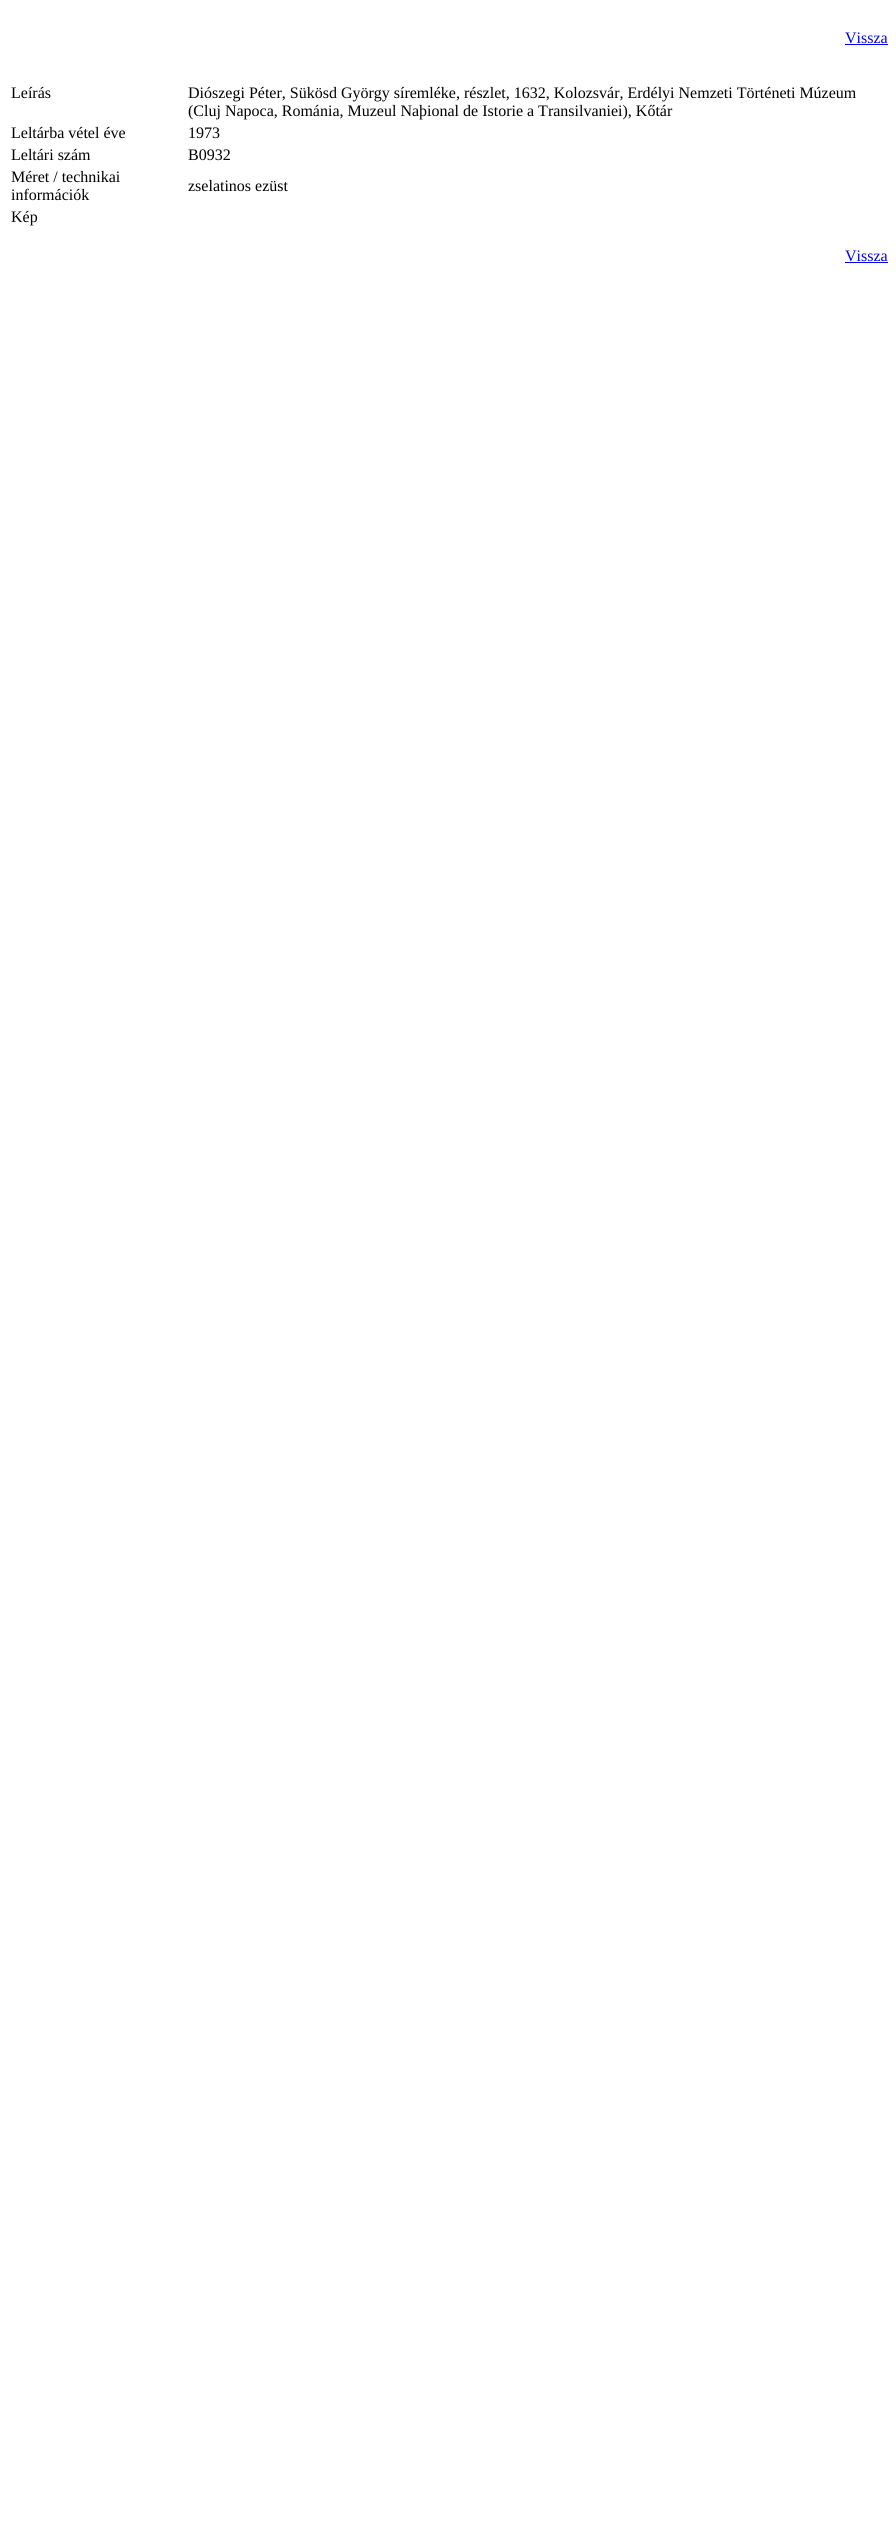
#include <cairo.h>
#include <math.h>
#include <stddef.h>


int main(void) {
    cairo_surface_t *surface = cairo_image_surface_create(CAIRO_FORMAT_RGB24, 896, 2539);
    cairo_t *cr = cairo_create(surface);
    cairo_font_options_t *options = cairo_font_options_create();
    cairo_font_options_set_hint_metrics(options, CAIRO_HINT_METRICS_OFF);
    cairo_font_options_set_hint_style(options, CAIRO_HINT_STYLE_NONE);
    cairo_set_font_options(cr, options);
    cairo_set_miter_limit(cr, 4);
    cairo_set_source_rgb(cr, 1, 1, 1);
    cairo_paint(cr);
    cairo_select_font_face(cr, "Liberation Serif", CAIRO_FONT_SLANT_NORMAL, CAIRO_FONT_WEIGHT_NORMAL);
    cairo_set_font_size(cr, 16);
    cairo_set_source_rgb(cr, 0, 0, 0.933);
    cairo_move_to(cr, 845, 43);
    cairo_show_text(cr, "Vissza");
    cairo_rectangle(cr, 845, 44, 43, 1);
    cairo_fill(cr);
    cairo_set_source_rgb(cr, 0, 0, 0);
    cairo_move_to(cr, 11, 98);
    cairo_show_text(cr, "Leírás");
    cairo_move_to(cr, 188, 98);
    cairo_show_text(cr, "Diószegi Péter, Sükösd György síremléke, részlet, 1632, Kolozsvár, Erdélyi Nemzeti Történeti Múzeum");
    cairo_move_to(cr, 188, 116);
    cairo_show_text(cr, "(Cluj Napoca, Románia, Muzeul Naþional de Istorie a Transilvaniei), Kőtár");
    cairo_move_to(cr, 11, 138);
    cairo_show_text(cr, "Leltárba vétel éve");
    cairo_move_to(cr, 188, 138);
    cairo_show_text(cr, "1973");
    cairo_move_to(cr, 11, 160);
    cairo_show_text(cr, "Leltári szám");
    cairo_move_to(cr, 188, 160);
    cairo_show_text(cr, "B0932");
    cairo_move_to(cr, 11, 182);
    cairo_show_text(cr, "Méret / technikai");
    cairo_move_to(cr, 11, 200);
    cairo_show_text(cr, "információk");
    cairo_move_to(cr, 188, 191);
    cairo_show_text(cr, "zselatinos ezüst");
    cairo_move_to(cr, 11, 222);
    cairo_show_text(cr, "Kép");
    cairo_set_source_rgb(cr, 0, 0, 0.933);
    cairo_move_to(cr, 845, 261);
    cairo_show_text(cr, "Vissza");
    cairo_rectangle(cr, 845, 262, 43, 1);
    cairo_fill(cr);
    cairo_surface_write_to_png(surface, "page.png");
    cairo_font_options_destroy(options);
    cairo_destroy(cr);
    cairo_surface_destroy(surface);
    return 0;
}
